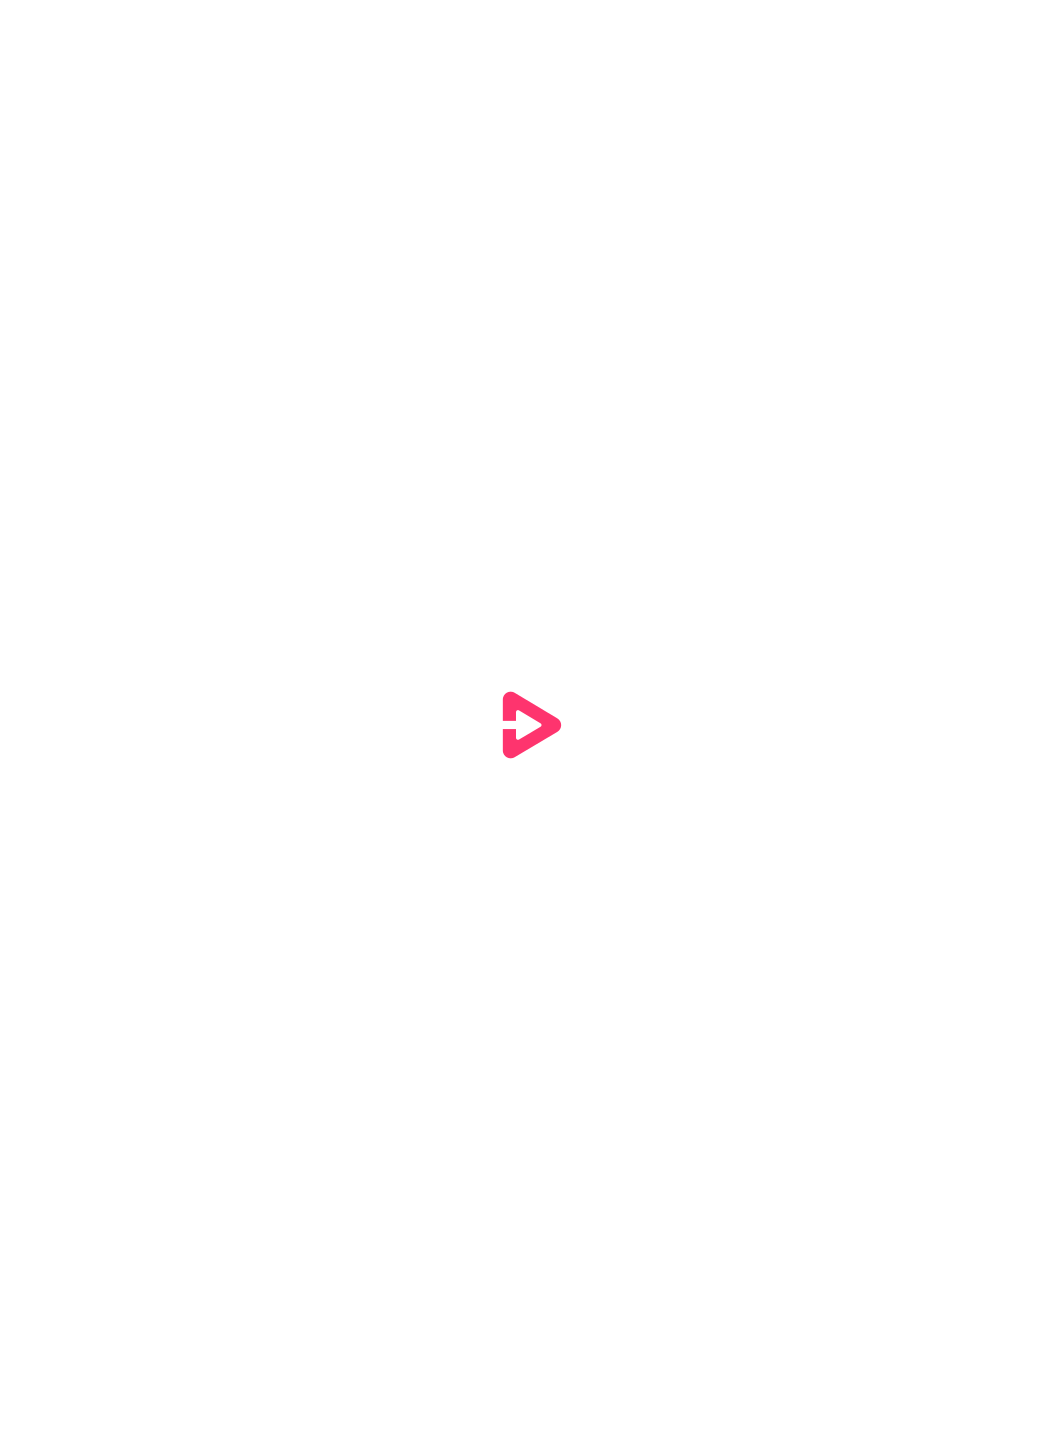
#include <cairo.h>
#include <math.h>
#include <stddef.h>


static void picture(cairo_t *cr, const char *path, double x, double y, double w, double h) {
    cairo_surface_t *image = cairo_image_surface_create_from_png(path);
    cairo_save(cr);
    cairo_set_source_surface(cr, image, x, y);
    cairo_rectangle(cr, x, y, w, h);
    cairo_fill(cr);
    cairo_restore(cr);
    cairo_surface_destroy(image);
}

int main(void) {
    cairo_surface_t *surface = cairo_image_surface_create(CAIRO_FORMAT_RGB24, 1064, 1450);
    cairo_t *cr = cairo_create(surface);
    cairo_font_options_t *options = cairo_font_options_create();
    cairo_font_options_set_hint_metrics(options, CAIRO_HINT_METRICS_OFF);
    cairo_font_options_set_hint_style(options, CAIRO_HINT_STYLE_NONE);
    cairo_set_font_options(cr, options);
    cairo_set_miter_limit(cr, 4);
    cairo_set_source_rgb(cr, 1, 1, 1);
    cairo_paint(cr);
    picture(cr, "img1.png", 502, 691, 60, 68);
    cairo_surface_write_to_png(surface, "page.png");
    cairo_font_options_destroy(options);
    cairo_destroy(cr);
    cairo_surface_destroy(surface);
    return 0;
}
